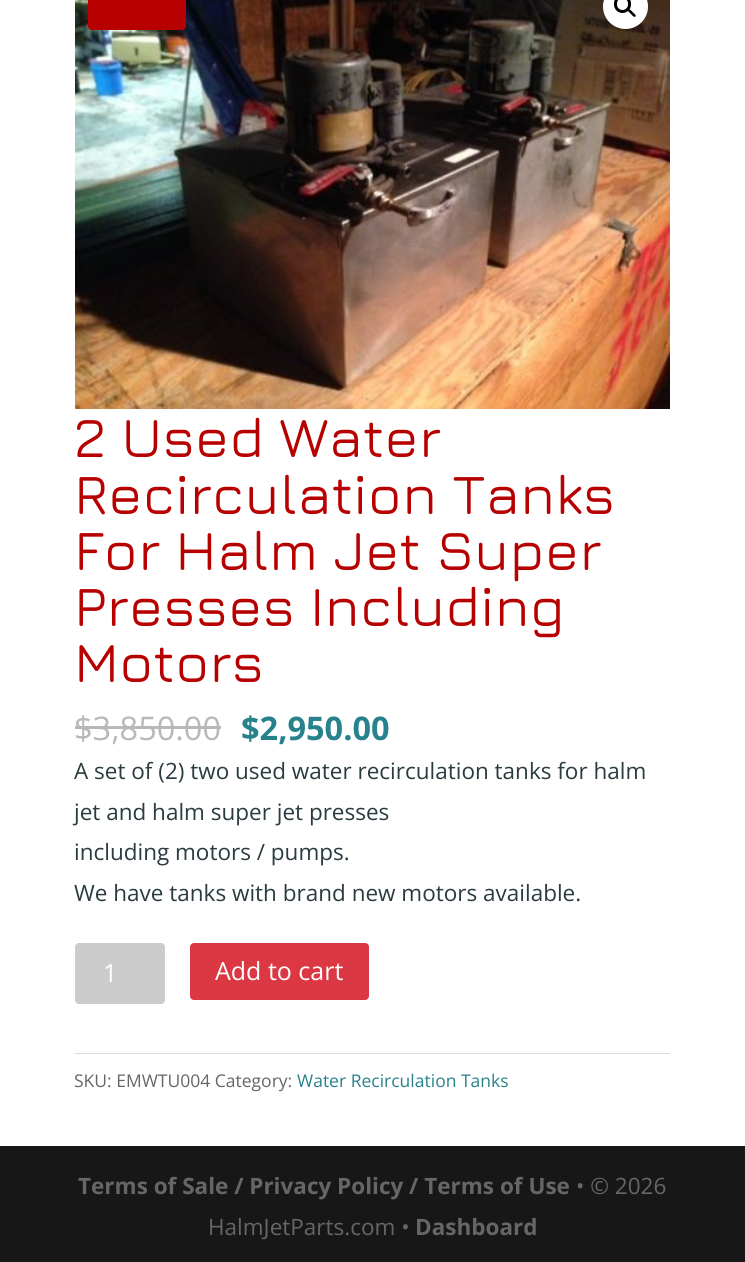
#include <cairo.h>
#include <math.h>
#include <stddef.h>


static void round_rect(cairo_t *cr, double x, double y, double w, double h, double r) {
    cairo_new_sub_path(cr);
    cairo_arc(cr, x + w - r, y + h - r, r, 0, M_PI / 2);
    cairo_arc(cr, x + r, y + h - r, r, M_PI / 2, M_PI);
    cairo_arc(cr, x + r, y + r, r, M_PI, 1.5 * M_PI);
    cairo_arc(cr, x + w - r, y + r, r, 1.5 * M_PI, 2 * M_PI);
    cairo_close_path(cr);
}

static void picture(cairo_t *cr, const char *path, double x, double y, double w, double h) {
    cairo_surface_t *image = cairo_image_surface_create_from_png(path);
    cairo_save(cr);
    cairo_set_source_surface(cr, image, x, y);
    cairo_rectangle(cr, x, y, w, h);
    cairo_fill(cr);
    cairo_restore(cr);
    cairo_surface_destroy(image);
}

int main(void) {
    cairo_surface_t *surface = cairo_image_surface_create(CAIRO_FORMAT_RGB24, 745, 1262);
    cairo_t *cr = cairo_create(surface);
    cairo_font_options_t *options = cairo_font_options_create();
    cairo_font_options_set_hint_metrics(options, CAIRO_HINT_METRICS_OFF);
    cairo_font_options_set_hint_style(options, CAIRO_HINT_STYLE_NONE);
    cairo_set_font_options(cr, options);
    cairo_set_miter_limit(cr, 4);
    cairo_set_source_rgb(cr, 1, 1, 1);
    cairo_paint(cr);
    picture(cr, "img1.png", 75, 0, 595, 409);
    cairo_set_source_rgb(cr, 1, 1, 1);
    cairo_arc(cr, 625.5, 6.5, 22.5, 0, 2 * M_PI);
    cairo_fill(cr);
    round_rect(cr, 615.5, -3.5, 14, 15, 7);
    cairo_set_source_rgb(cr, 0, 0, 0);
    cairo_set_line_width(cr, 3);
    cairo_stroke(cr);
    cairo_new_path(cr);
    cairo_move_to(cr, 628, 9.5);
    cairo_curve_to(cr, 629.5, 8, 632, 11.5, 632.5, 12);
    cairo_curve_to(cr, 633.5, 13, 636.5, 15, 635.5, 16.5);
    cairo_curve_to(cr, 634, 18, 631.5, 14.5, 631, 14);
    cairo_curve_to(cr, 630, 13, 627, 11, 628, 9.5);
    cairo_close_path(cr);
    cairo_fill(cr);
    cairo_set_source_rgb(cr, 0.718, 0, 0);
    round_rect(cr, 88, -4, 98, 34, 4);
    cairo_fill(cr);
    cairo_select_font_face(cr, "Jura Medium", CAIRO_FONT_SLANT_NORMAL, CAIRO_FONT_WEIGHT_NORMAL);
    cairo_set_font_size(cr, 56.25);
    cairo_move_to(cr, 74, 457);
    cairo_show_text(cr, "2 Used Water");
    cairo_move_to(cr, 74, 514);
    cairo_show_text(cr, "Recirculation Tanks");
    cairo_move_to(cr, 74, 570);
    cairo_show_text(cr, "For Halm Jet Super");
    cairo_move_to(cr, 74, 626);
    cairo_show_text(cr, "Presses Including");
    cairo_move_to(cr, 74, 682);
    cairo_show_text(cr, "Motors");
    cairo_select_font_face(cr, "Open Sans", CAIRO_FONT_SLANT_NORMAL, CAIRO_FONT_WEIGHT_NORMAL);
    cairo_set_font_size(cr, 32.5);
    cairo_set_source_rgb(cr, 0.722, 0.722, 0.722);
    cairo_move_to(cr, 74, 740);
    cairo_show_text(cr, "$3,850.00");
    cairo_rectangle(cr, 75, 726, 146, 3);
    cairo_fill(cr);
    cairo_select_font_face(cr, "Open Sans", CAIRO_FONT_SLANT_NORMAL, CAIRO_FONT_WEIGHT_BOLD);
    cairo_set_source_rgb(cr, 0.153, 0.51, 0.549);
    cairo_move_to(cr, 241, 740);
    cairo_show_text(cr, "$2,950.00");
    cairo_select_font_face(cr, "Open Sans", CAIRO_FONT_SLANT_NORMAL, CAIRO_FONT_WEIGHT_NORMAL);
    cairo_set_font_size(cr, 22.5);
    cairo_set_source_rgb(cr, 0.165, 0.235, 0.251);
    cairo_move_to(cr, 74, 779);
    cairo_show_text(cr, "A set of (2) two used water recirculation tanks for halm");
    cairo_move_to(cr, 74, 820);
    cairo_show_text(cr, "jet and halm super jet presses");
    cairo_move_to(cr, 74, 860);
    cairo_show_text(cr, "including motors / pumps.");
    cairo_move_to(cr, 74, 901);
    cairo_show_text(cr, "We have tanks with brand new motors available.");
    cairo_set_source_rgb(cr, 0.8, 0.8, 0.8);
    round_rect(cr, 75, 943, 90, 61, 4);
    cairo_fill(cr);
    cairo_set_font_size(cr, 25);
    cairo_set_source_rgb(cr, 1, 1, 1);
    cairo_move_to(cr, 103, 982);
    cairo_show_text(cr, "1");
    cairo_set_source_rgb(cr, 0.859, 0.22, 0.263);
    round_rect(cr, 190, 943, 179, 57, 4);
    cairo_fill(cr);
    cairo_set_source_rgb(cr, 1, 1, 1);
    cairo_move_to(cr, 215, 980);
    cairo_show_text(cr, "Add to cart");
    cairo_set_source_rgb(cr, 0.855, 0.855, 0.855);
    cairo_rectangle(cr, 75, 1053, 595, 1);
    cairo_fill(cr);
    cairo_set_font_size(cr, 17.5);
    cairo_set_source_rgb(cr, 0.4, 0.4, 0.4);
    cairo_move_to(cr, 74, 1087);
    cairo_show_text(cr, "SKU: EMWTU004 Category:");
    cairo_set_source_rgb(cr, 0.153, 0.51, 0.549);
    cairo_move_to(cr, 297, 1087);
    cairo_show_text(cr, "Water Recirculation Tanks");
    cairo_set_source_rgb(cr, 0.09, 0.09, 0.09);
    cairo_rectangle(cr, 0, 1146, 745, 116);
    cairo_fill(cr);
    cairo_select_font_face(cr, "Open Sans", CAIRO_FONT_SLANT_NORMAL, CAIRO_FONT_WEIGHT_BOLD);
    cairo_set_font_size(cr, 22.5);
    cairo_set_source_rgb(cr, 0.4, 0.4, 0.4);
    cairo_move_to(cr, 78, 1194);
    cairo_show_text(cr, "Terms of Sale / Privacy Policy / Terms of Use");
    cairo_select_font_face(cr, "Open Sans", CAIRO_FONT_SLANT_NORMAL, CAIRO_FONT_WEIGHT_NORMAL);
    cairo_move_to(cr, 576, 1194);
    cairo_show_text(cr, "• © 2026");
    cairo_move_to(cr, 208, 1235);
    cairo_show_text(cr, "HalmJetParts.com •");
    cairo_select_font_face(cr, "Open Sans", CAIRO_FONT_SLANT_NORMAL, CAIRO_FONT_WEIGHT_BOLD);
    cairo_move_to(cr, 415, 1235);
    cairo_show_text(cr, "Dashboard");
    cairo_surface_write_to_png(surface, "page.png");
    cairo_font_options_destroy(options);
    cairo_destroy(cr);
    cairo_surface_destroy(surface);
    return 0;
}
